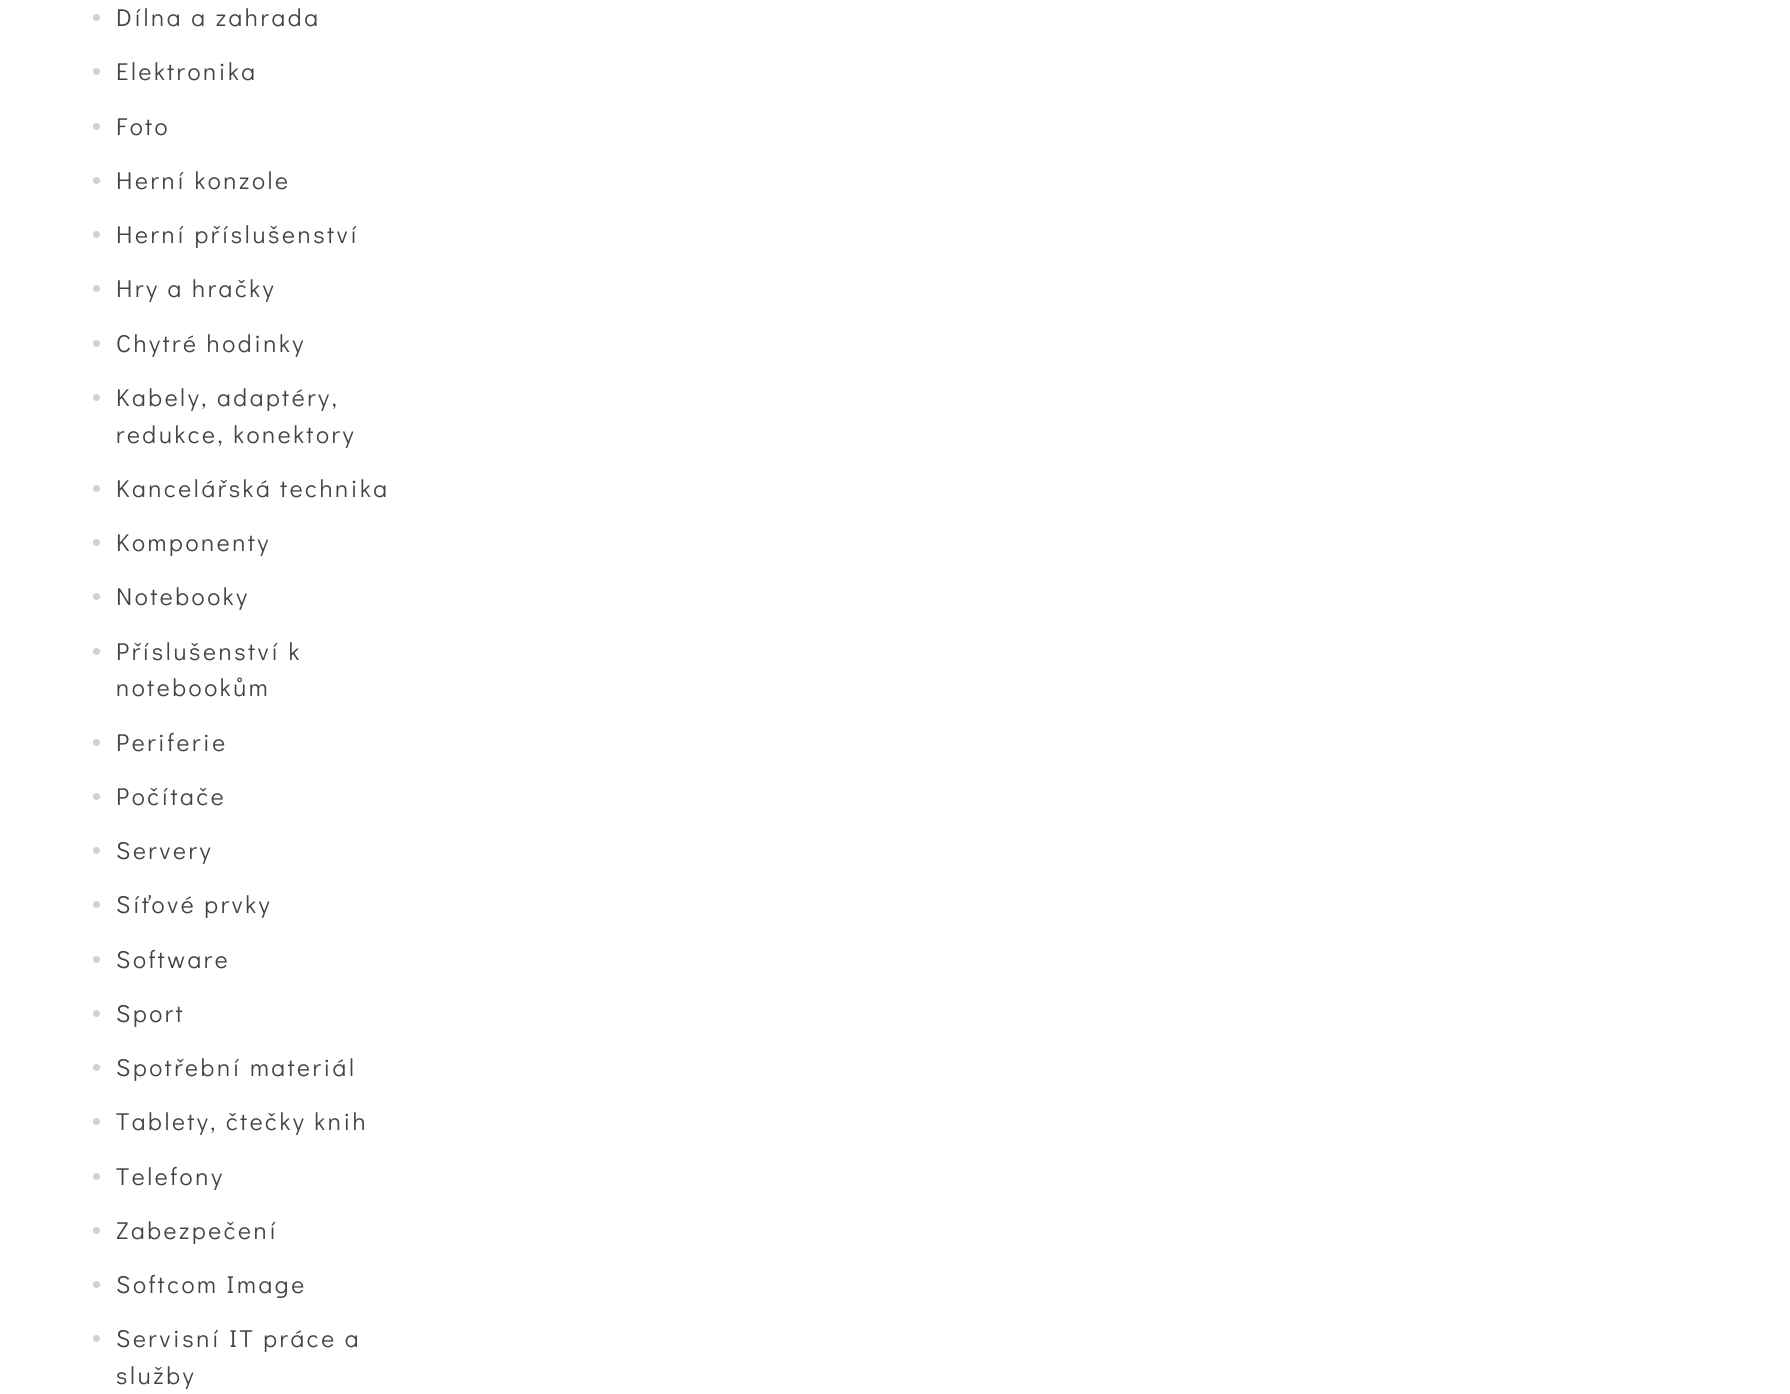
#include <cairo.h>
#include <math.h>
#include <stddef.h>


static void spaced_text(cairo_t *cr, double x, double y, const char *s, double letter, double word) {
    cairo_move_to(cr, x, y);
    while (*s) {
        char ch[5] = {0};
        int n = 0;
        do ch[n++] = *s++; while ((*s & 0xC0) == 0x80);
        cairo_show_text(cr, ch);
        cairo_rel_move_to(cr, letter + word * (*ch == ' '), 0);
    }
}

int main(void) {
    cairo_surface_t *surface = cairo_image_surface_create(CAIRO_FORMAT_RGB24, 1790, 1394);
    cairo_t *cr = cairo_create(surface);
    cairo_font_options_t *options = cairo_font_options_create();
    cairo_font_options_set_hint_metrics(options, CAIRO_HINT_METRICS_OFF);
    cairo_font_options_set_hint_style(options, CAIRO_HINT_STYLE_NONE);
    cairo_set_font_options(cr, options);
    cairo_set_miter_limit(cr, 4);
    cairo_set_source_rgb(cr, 1, 1, 1);
    cairo_paint(cr);
    cairo_set_source_rgb(cr, 0.82, 0.82, 0.82);
    cairo_arc(cr, 96.5, 17.5, 3.5, 0, 2 * M_PI);
    cairo_fill(cr);
    cairo_select_font_face(cr, "Didact Gothic", CAIRO_FONT_SLANT_NORMAL, CAIRO_FONT_WEIGHT_NORMAL);
    cairo_set_font_size(cr, 24.5);
    cairo_set_source_rgb(cr, 0.267, 0.267, 0.267);
    spaced_text(cr, 116, 26, "Dílna a zahrada", 2.6, 0);
    cairo_set_source_rgb(cr, 0.82, 0.82, 0.82);
    cairo_new_path(cr);
    cairo_arc(cr, 96.5, 71.5, 3.5, 0, 2 * M_PI);
    cairo_fill(cr);
    cairo_set_source_rgb(cr, 0.267, 0.267, 0.267);
    spaced_text(cr, 116, 80, "Elektronika", 2.6, 0);
    cairo_set_source_rgb(cr, 0.82, 0.82, 0.82);
    cairo_new_path(cr);
    cairo_arc(cr, 96.5, 126.5, 3.5, 0, 2 * M_PI);
    cairo_fill(cr);
    cairo_set_source_rgb(cr, 0.267, 0.267, 0.267);
    spaced_text(cr, 116, 135, "Foto", 2.6, 0);
    cairo_set_source_rgb(cr, 0.82, 0.82, 0.82);
    cairo_new_path(cr);
    cairo_arc(cr, 96.5, 180.5, 3.5, 0, 2 * M_PI);
    cairo_fill(cr);
    cairo_set_source_rgb(cr, 0.267, 0.267, 0.267);
    spaced_text(cr, 116, 189, "Herní konzole", 2.6, 0);
    cairo_set_source_rgb(cr, 0.82, 0.82, 0.82);
    cairo_new_path(cr);
    cairo_arc(cr, 96.5, 234.5, 3.5, 0, 2 * M_PI);
    cairo_fill(cr);
    cairo_set_source_rgb(cr, 0.267, 0.267, 0.267);
    spaced_text(cr, 116, 243, "Herní příslušenství", 2.6, 0);
    cairo_set_source_rgb(cr, 0.82, 0.82, 0.82);
    cairo_new_path(cr);
    cairo_arc(cr, 96.5, 288.5, 3.5, 0, 2 * M_PI);
    cairo_fill(cr);
    cairo_set_source_rgb(cr, 0.267, 0.267, 0.267);
    spaced_text(cr, 116, 297, "Hry a hračky", 2.6, 0);
    cairo_set_source_rgb(cr, 0.82, 0.82, 0.82);
    cairo_new_path(cr);
    cairo_arc(cr, 96.5, 343.5, 3.5, 0, 2 * M_PI);
    cairo_fill(cr);
    cairo_set_source_rgb(cr, 0.267, 0.267, 0.267);
    spaced_text(cr, 116, 352, "Chytré hodinky", 2.6, 0);
    cairo_set_source_rgb(cr, 0.82, 0.82, 0.82);
    cairo_new_path(cr);
    cairo_arc(cr, 96.5, 397.5, 3.5, 0, 2 * M_PI);
    cairo_fill(cr);
    cairo_set_source_rgb(cr, 0.267, 0.267, 0.267);
    spaced_text(cr, 116, 406, "Kabely, adaptéry,", 2.6, 0);
    spaced_text(cr, 116, 443, "redukce, konektory", 2.6, 0);
    cairo_set_source_rgb(cr, 0.82, 0.82, 0.82);
    cairo_new_path(cr);
    cairo_arc(cr, 96.5, 488.5, 3.5, 0, 2 * M_PI);
    cairo_fill(cr);
    cairo_set_source_rgb(cr, 0.267, 0.267, 0.267);
    spaced_text(cr, 116, 497, "Kancelářská technika", 2.6, 0);
    cairo_set_source_rgb(cr, 0.82, 0.82, 0.82);
    cairo_new_path(cr);
    cairo_arc(cr, 96.5, 542.5, 3.5, 0, 2 * M_PI);
    cairo_fill(cr);
    cairo_set_source_rgb(cr, 0.267, 0.267, 0.267);
    spaced_text(cr, 116, 551, "Komponenty", 2.6, 0);
    cairo_set_source_rgb(cr, 0.82, 0.82, 0.82);
    cairo_new_path(cr);
    cairo_arc(cr, 96.5, 596.5, 3.5, 0, 2 * M_PI);
    cairo_fill(cr);
    cairo_set_source_rgb(cr, 0.267, 0.267, 0.267);
    spaced_text(cr, 116, 605, "Notebooky", 2.6, 0);
    cairo_set_source_rgb(cr, 0.82, 0.82, 0.82);
    cairo_new_path(cr);
    cairo_arc(cr, 96.5, 651.5, 3.5, 0, 2 * M_PI);
    cairo_fill(cr);
    cairo_set_source_rgb(cr, 0.267, 0.267, 0.267);
    spaced_text(cr, 116, 660, "Příslušenství k", 2.6, 0);
    spaced_text(cr, 116, 696, "notebookům", 2.6, 0);
    cairo_set_source_rgb(cr, 0.82, 0.82, 0.82);
    cairo_new_path(cr);
    cairo_arc(cr, 96.5, 742.5, 3.5, 0, 2 * M_PI);
    cairo_fill(cr);
    cairo_set_source_rgb(cr, 0.267, 0.267, 0.267);
    spaced_text(cr, 116, 751, "Periferie", 2.6, 0);
    cairo_set_source_rgb(cr, 0.82, 0.82, 0.82);
    cairo_new_path(cr);
    cairo_arc(cr, 96.5, 796.5, 3.5, 0, 2 * M_PI);
    cairo_fill(cr);
    cairo_set_source_rgb(cr, 0.267, 0.267, 0.267);
    spaced_text(cr, 116, 805, "Počítače", 2.6, 0);
    cairo_set_source_rgb(cr, 0.82, 0.82, 0.82);
    cairo_new_path(cr);
    cairo_arc(cr, 96.5, 850.5, 3.5, 0, 2 * M_PI);
    cairo_fill(cr);
    cairo_set_source_rgb(cr, 0.267, 0.267, 0.267);
    spaced_text(cr, 116, 859, "Servery", 2.6, 0);
    cairo_set_source_rgb(cr, 0.82, 0.82, 0.82);
    cairo_new_path(cr);
    cairo_arc(cr, 96.5, 904.5, 3.5, 0, 2 * M_PI);
    cairo_fill(cr);
    cairo_set_source_rgb(cr, 0.267, 0.267, 0.267);
    spaced_text(cr, 116, 913, "Síťové prvky", 2.6, 0);
    cairo_set_source_rgb(cr, 0.82, 0.82, 0.82);
    cairo_new_path(cr);
    cairo_arc(cr, 96.5, 959.5, 3.5, 0, 2 * M_PI);
    cairo_fill(cr);
    cairo_set_source_rgb(cr, 0.267, 0.267, 0.267);
    spaced_text(cr, 116, 968, "Software", 2.6, 0);
    cairo_set_source_rgb(cr, 0.82, 0.82, 0.82);
    cairo_new_path(cr);
    cairo_arc(cr, 96.5, 1013.5, 3.5, 0, 2 * M_PI);
    cairo_fill(cr);
    cairo_set_source_rgb(cr, 0.267, 0.267, 0.267);
    spaced_text(cr, 116, 1022, "Sport", 2.6, 0);
    cairo_set_source_rgb(cr, 0.82, 0.82, 0.82);
    cairo_new_path(cr);
    cairo_arc(cr, 96.5, 1067.5, 3.5, 0, 2 * M_PI);
    cairo_fill(cr);
    cairo_set_source_rgb(cr, 0.267, 0.267, 0.267);
    spaced_text(cr, 116, 1076, "Spotřební materiál", 2.6, 0);
    cairo_set_source_rgb(cr, 0.82, 0.82, 0.82);
    cairo_new_path(cr);
    cairo_arc(cr, 96.5, 1121.5, 3.5, 0, 2 * M_PI);
    cairo_fill(cr);
    cairo_set_source_rgb(cr, 0.267, 0.267, 0.267);
    spaced_text(cr, 116, 1130, "Tablety, čtečky knih", 2.6, 0);
    cairo_set_source_rgb(cr, 0.82, 0.82, 0.82);
    cairo_new_path(cr);
    cairo_arc(cr, 96.5, 1176.5, 3.5, 0, 2 * M_PI);
    cairo_fill(cr);
    cairo_set_source_rgb(cr, 0.267, 0.267, 0.267);
    spaced_text(cr, 116, 1185, "Telefony", 2.6, 0);
    cairo_set_source_rgb(cr, 0.82, 0.82, 0.82);
    cairo_new_path(cr);
    cairo_arc(cr, 96.5, 1230.5, 3.5, 0, 2 * M_PI);
    cairo_fill(cr);
    cairo_set_source_rgb(cr, 0.267, 0.267, 0.267);
    spaced_text(cr, 116, 1239, "Zabezpečení", 2.6, 0);
    cairo_set_source_rgb(cr, 0.82, 0.82, 0.82);
    cairo_new_path(cr);
    cairo_arc(cr, 96.5, 1284.5, 3.5, 0, 2 * M_PI);
    cairo_fill(cr);
    cairo_set_source_rgb(cr, 0.267, 0.267, 0.267);
    spaced_text(cr, 116, 1293, "Softcom Image", 2.6, 0);
    cairo_set_source_rgb(cr, 0.82, 0.82, 0.82);
    cairo_new_path(cr);
    cairo_arc(cr, 96.5, 1338.5, 3.5, 0, 2 * M_PI);
    cairo_fill(cr);
    cairo_set_source_rgb(cr, 0.267, 0.267, 0.267);
    spaced_text(cr, 116, 1347, "Servisní IT práce a", 2.6, 0);
    spaced_text(cr, 116, 1384, "služby", 2.6, 0);
    cairo_surface_write_to_png(surface, "page.png");
    cairo_font_options_destroy(options);
    cairo_destroy(cr);
    cairo_surface_destroy(surface);
    return 0;
}
